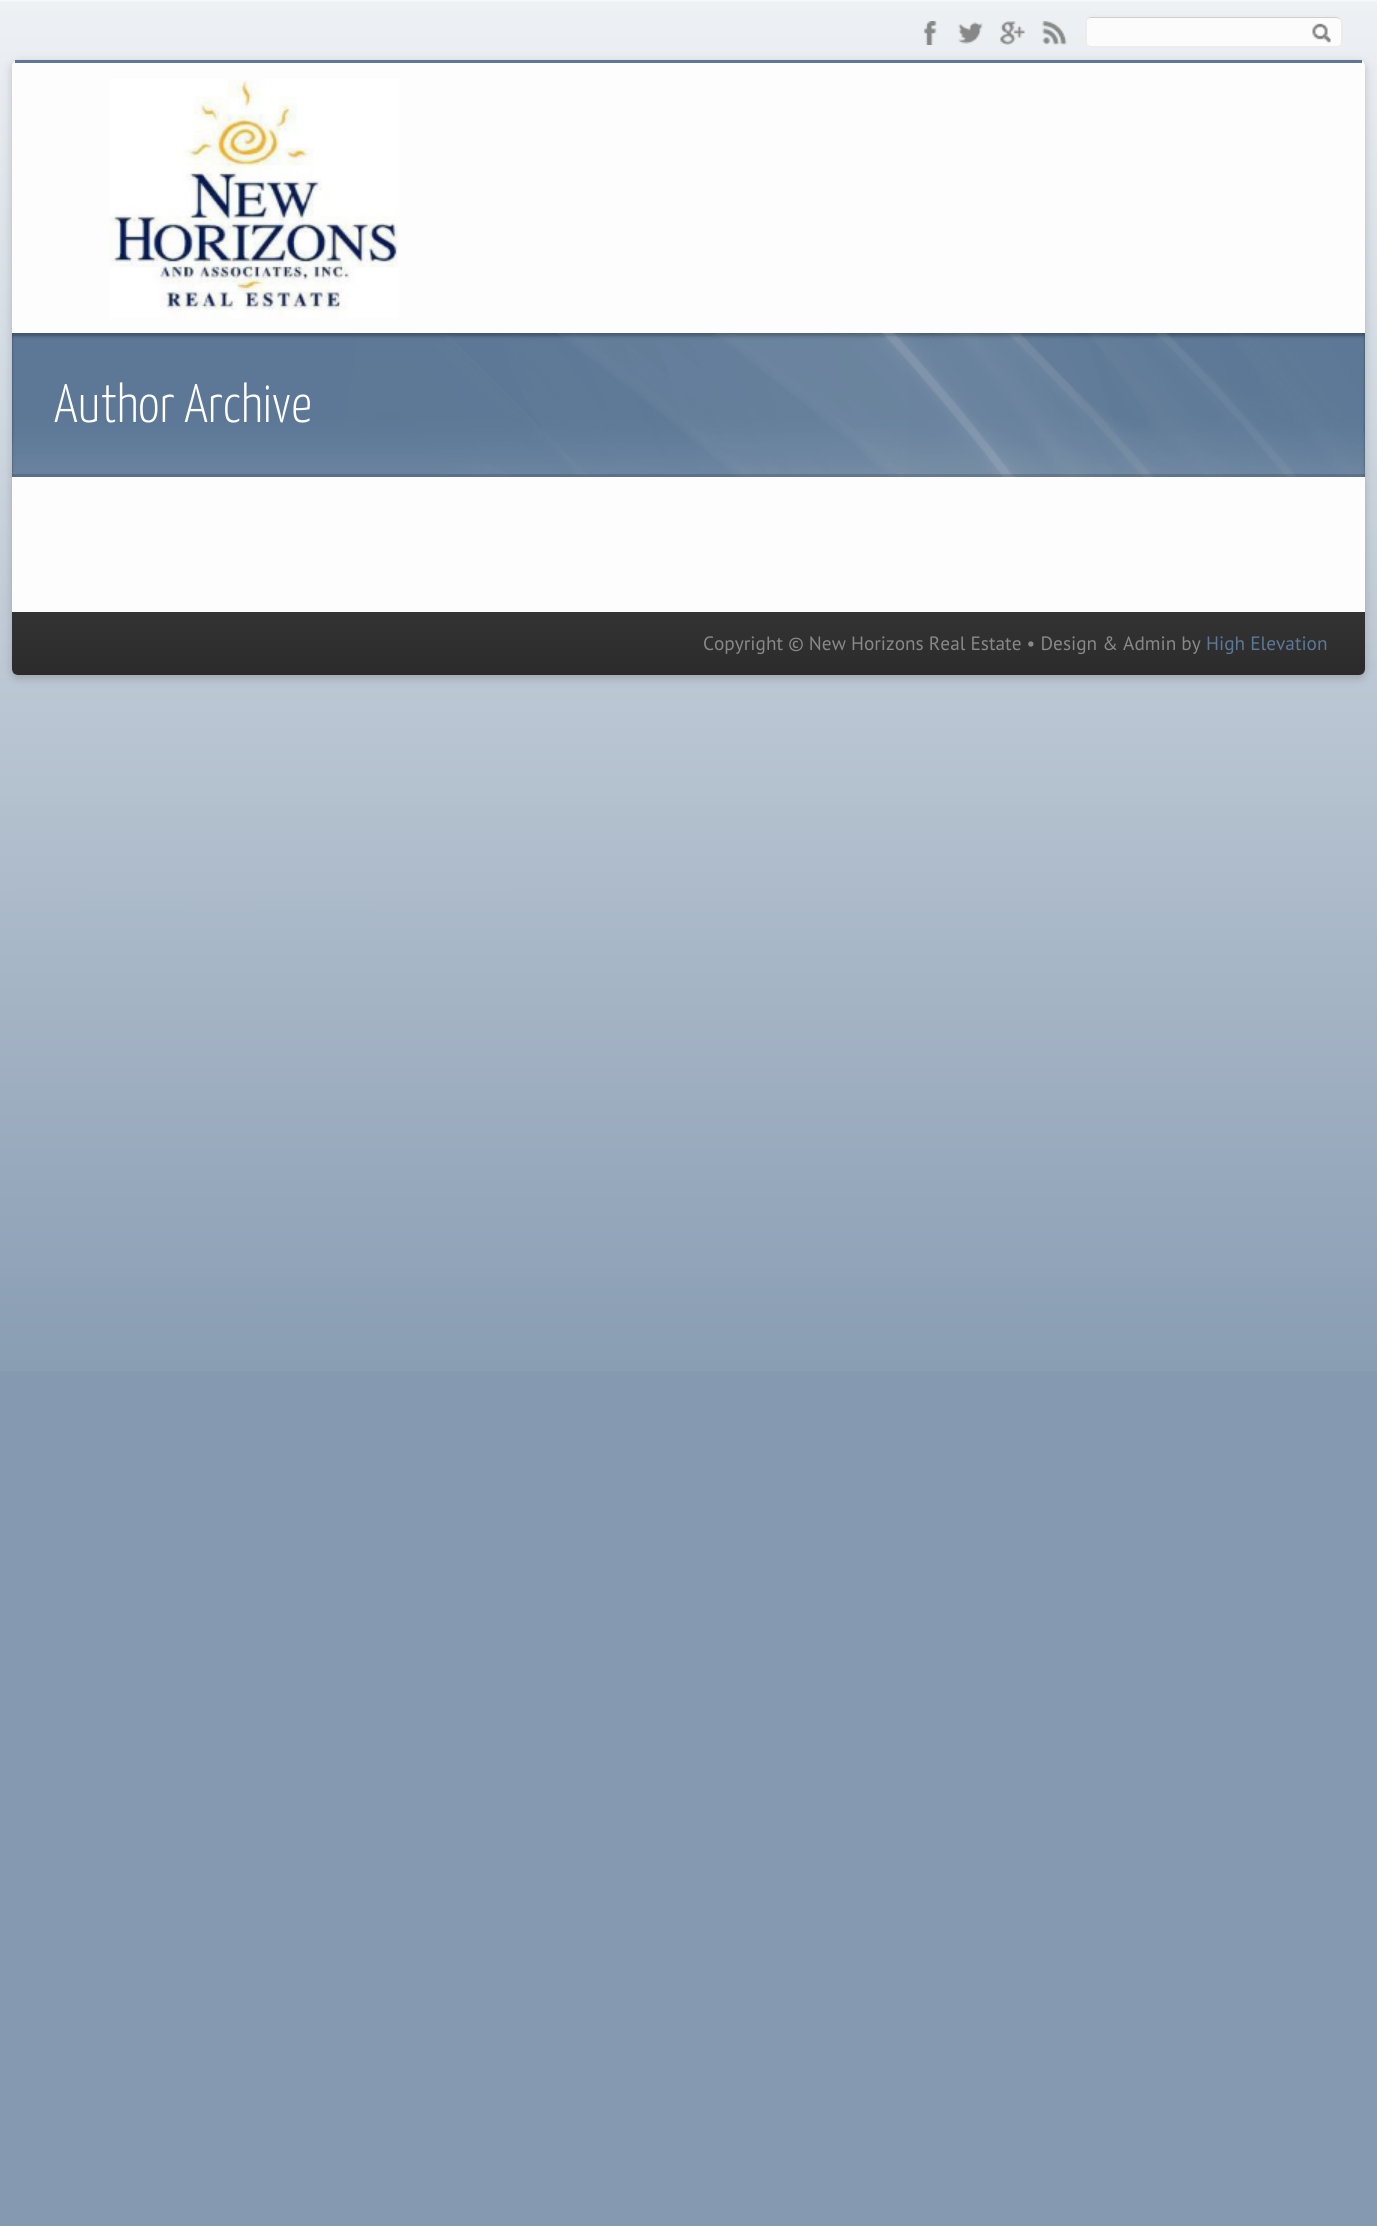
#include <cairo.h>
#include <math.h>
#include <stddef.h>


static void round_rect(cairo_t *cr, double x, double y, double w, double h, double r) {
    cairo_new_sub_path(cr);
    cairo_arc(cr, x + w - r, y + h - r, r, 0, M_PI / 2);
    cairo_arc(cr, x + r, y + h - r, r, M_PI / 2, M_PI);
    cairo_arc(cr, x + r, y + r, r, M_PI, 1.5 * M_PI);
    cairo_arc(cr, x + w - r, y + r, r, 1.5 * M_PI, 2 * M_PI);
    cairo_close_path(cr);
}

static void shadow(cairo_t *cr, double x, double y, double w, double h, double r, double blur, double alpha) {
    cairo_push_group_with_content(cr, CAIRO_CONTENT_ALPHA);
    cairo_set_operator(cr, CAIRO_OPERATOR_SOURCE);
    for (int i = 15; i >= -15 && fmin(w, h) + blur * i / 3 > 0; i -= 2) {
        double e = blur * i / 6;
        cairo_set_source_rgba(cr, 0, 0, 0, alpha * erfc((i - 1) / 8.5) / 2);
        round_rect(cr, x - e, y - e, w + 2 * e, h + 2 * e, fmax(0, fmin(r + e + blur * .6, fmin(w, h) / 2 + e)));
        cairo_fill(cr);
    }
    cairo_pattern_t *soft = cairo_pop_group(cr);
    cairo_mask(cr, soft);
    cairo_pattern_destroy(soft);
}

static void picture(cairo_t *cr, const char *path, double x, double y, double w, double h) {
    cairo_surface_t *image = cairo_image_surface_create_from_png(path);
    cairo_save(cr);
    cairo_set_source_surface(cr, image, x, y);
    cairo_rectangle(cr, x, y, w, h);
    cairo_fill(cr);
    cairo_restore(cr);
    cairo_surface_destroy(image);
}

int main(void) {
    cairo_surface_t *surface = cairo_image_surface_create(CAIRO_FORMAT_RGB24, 1377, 2226);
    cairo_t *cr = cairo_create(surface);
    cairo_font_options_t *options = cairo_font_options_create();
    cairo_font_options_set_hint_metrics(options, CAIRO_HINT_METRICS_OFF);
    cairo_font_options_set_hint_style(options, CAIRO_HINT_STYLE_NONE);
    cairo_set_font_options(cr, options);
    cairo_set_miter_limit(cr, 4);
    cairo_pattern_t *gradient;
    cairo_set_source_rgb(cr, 0.522, 0.6, 0.694);
    cairo_paint(cr);
    picture(cr, "img1.png", 0, 0, 1377, 1371);
    picture(cr, "img2.png", 923, 21, 14, 24);
    picture(cr, "img3.png", 958, 22, 25, 22);
    picture(cr, "img4.png", 1000, 21, 25, 24);
    picture(cr, "img5.png", 1042, 21, 25, 24);
    cairo_set_source_rgb(cr, 0.988, 0.988, 0.988);
    round_rect(cr, 1085, 15, 258, 33, 6);
    cairo_fill(cr);
    cairo_set_source_rgb(cr, 0.808, 0.808, 0.808);
    cairo_new_path(cr);
    cairo_move_to(cr, 1090, 18);
    cairo_line_to(cr, 1336, 18);
    cairo_curve_to(cr, 1339, 18, 1341, 20, 1341, 22);
    cairo_curve_to(cr, 1341, 19, 1339, 17, 1336, 17);
    cairo_line_to(cr, 1091, 17);
    cairo_curve_to(cr, 1088, 17, 1086, 19, 1086, 22);
    cairo_curve_to(cr, 1086, 20, 1088, 18, 1090, 18);
    cairo_close_path(cr);
    cairo_fill(cr);
    round_rect(cr, 1086, 16, 256, 31, 5);
    cairo_set_source_rgb(cr, 0.925, 0.925, 0.925);
    cairo_stroke(cr);
    picture(cr, "img6.png", 1312, 23, 19, 20);
    cairo_set_source_rgb(cr, 0.196, 0.196, 0.196);
    shadow(cr, 12, 63, 1353, 615, 6, 4.5, 0.25);
    cairo_set_source_rgb(cr, 0.992, 0.992, 0.992);
    round_rect(cr, 12, 60, 1353, 615, 6);
    cairo_fill(cr);
    cairo_set_source_rgb(cr, 0.361, 0.471, 0.588);
    cairo_rectangle(cr, 15, 60, 1347, 3);
    cairo_fill(cr);
    picture(cr, "img7.png", 109, 79, 290, 239);
    cairo_rectangle(cr, 12, 333, 1353, 144);
    cairo_fill(cr);
    picture(cr, "img8.png", 12, 333, 1353, 144);
    cairo_set_source_rgba(cr, 0, 0, 0, 0.15);
    cairo_rectangle(cr, 12, 474, 1353, 3);
    cairo_fill(cr);
    cairo_select_font_face(cr, "Yanone Kaffeesatz Light", CAIRO_FONT_SLANT_NORMAL, CAIRO_FONT_WEIGHT_NORMAL);
    cairo_set_font_size(cr, 54);
    cairo_set_source_rgb(cr, 1, 1, 1);
    cairo_move_to(cr, 54, 422);
    cairo_show_text(cr, "Author Archive");
    gradient = cairo_pattern_create_linear(689, 612, 689, 675);
    cairo_pattern_add_color_stop_rgba(gradient, 0, 0.2, 0.2, 0.2, 1);
    cairo_pattern_add_color_stop_rgba(gradient, 1, 0.169, 0.169, 0.169, 1);
    cairo_set_source(cr, gradient);
    cairo_pattern_destroy(gradient);
    cairo_new_path(cr);
    cairo_move_to(cr, 12, 612);
    cairo_line_to(cr, 1365, 612);
    cairo_line_to(cr, 1365, 669);
    cairo_curve_to(cr, 1365, 672.5, 1362.5, 675, 1359, 675);
    cairo_line_to(cr, 18, 675);
    cairo_curve_to(cr, 14.5, 675, 12, 672.5, 12, 669);
    cairo_close_path(cr);
    cairo_fill(cr);
    cairo_select_font_face(cr, "PT Sans", CAIRO_FONT_SLANT_NORMAL, CAIRO_FONT_WEIGHT_NORMAL);
    cairo_set_font_size(cr, 19.3);
    cairo_set_source_rgb(cr, 0.533, 0.533, 0.533);
    cairo_move_to(cr, 703, 650);
    cairo_show_text(cr, "Copyright © New Horizons Real Estate • Design & Admin by");
    cairo_set_source_rgb(cr, 0.361, 0.471, 0.588);
    cairo_move_to(cr, 1206, 650);
    cairo_show_text(cr, "High Elevation");
    cairo_surface_write_to_png(surface, "page.png");
    cairo_font_options_destroy(options);
    cairo_destroy(cr);
    cairo_surface_destroy(surface);
    return 0;
}
